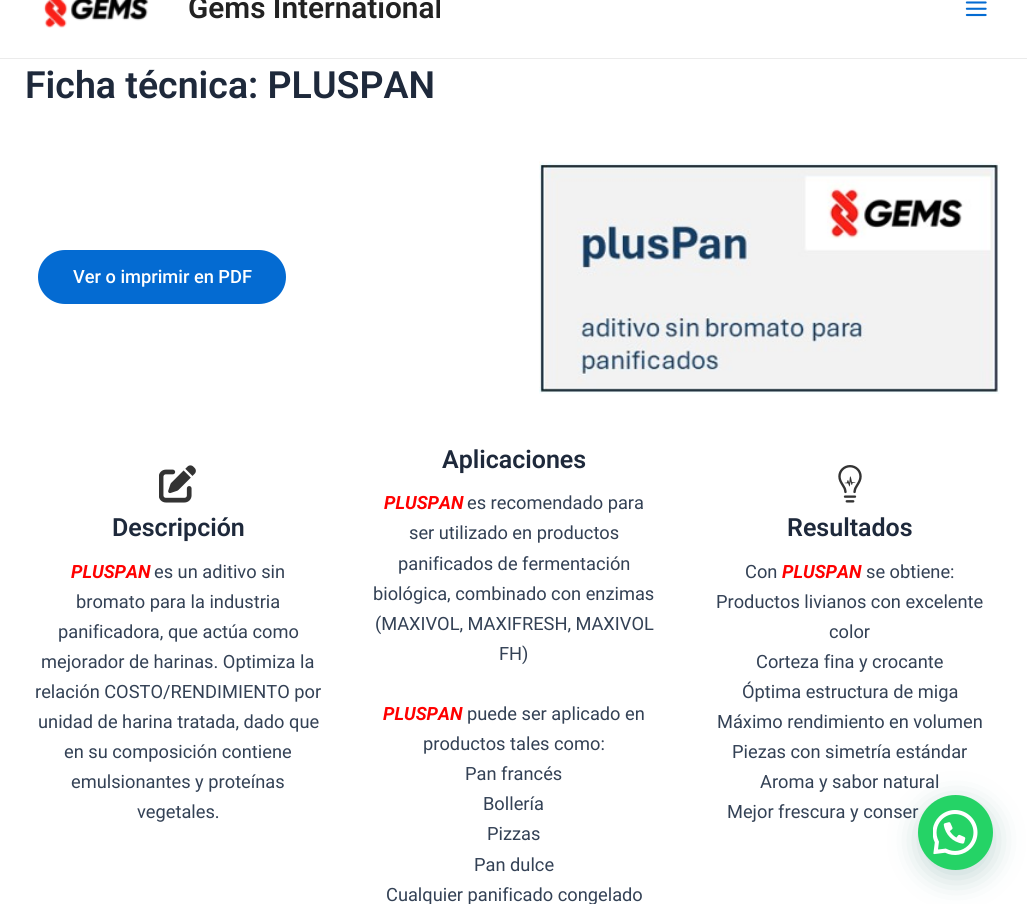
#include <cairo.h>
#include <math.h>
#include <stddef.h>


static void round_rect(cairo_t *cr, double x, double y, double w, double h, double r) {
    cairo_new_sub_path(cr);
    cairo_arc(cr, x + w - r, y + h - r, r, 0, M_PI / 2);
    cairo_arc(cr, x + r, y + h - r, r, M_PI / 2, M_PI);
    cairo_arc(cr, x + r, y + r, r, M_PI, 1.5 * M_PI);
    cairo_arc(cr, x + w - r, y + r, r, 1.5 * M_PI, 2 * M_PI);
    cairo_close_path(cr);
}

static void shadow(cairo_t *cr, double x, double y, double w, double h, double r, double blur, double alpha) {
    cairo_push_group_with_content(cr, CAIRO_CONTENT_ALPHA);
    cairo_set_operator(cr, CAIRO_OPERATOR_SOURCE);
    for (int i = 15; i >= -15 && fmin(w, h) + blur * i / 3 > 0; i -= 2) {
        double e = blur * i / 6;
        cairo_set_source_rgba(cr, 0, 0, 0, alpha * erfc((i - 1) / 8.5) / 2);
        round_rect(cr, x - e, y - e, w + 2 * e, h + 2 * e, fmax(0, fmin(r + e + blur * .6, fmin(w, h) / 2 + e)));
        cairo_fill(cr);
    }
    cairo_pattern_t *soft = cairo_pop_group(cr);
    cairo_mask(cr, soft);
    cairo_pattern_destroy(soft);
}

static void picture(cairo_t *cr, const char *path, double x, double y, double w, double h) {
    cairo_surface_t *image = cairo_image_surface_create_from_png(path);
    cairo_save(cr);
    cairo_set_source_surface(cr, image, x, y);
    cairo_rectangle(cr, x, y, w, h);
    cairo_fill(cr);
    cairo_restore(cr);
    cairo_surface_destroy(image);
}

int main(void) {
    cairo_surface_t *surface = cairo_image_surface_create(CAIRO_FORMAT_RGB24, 1027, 904);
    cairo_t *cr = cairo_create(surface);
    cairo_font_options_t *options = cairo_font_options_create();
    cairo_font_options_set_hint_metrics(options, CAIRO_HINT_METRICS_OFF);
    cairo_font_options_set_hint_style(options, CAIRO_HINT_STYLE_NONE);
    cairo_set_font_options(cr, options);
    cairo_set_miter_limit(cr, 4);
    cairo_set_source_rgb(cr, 1, 1, 1);
    cairo_paint(cr);
    cairo_set_source_rgb(cr, 0.918, 0.918, 0.918);
    cairo_rectangle(cr, 0, 58, 1027, 1);
    cairo_fill(cr);
    picture(cr, "img1.png", 43, 0, 106, 28);
    cairo_select_font_face(cr, "Roboto SemiBold", CAIRO_FONT_SLANT_NORMAL, CAIRO_FONT_WEIGHT_NORMAL);
    cairo_set_font_size(cr, 29.75);
    cairo_set_source_rgb(cr, 0.133, 0.133, 0.133);
    cairo_move_to(cr, 188, 18);
    cairo_show_text(cr, "Gems International");
    picture(cr, "img2.png", 965, 1, 22, 16);
    cairo_set_font_size(cr, 37.5);
    cairo_set_source_rgb(cr, 0.118, 0.161, 0.231);
    cairo_move_to(cr, 25, 98);
    cairo_show_text(cr, "Ficha técnica: PLUSPAN");
    cairo_set_source_rgb(cr, 0.016, 0.42, 0.824);
    round_rect(cr, 38, 250, 248, 54, 27);
    cairo_fill(cr);
    cairo_select_font_face(cr, "Roboto Medium", CAIRO_FONT_SLANT_NORMAL, CAIRO_FONT_WEIGHT_NORMAL);
    cairo_set_font_size(cr, 18.25);
    cairo_set_source_rgb(cr, 1, 1, 1);
    cairo_move_to(cr, 73, 283);
    cairo_show_text(cr, "Ver o imprimir en PDF");
    picture(cr, "img3.png", 539, 161, 461, 233);
    picture(cr, "img4.png", 159, 465, 37, 38);
    cairo_select_font_face(cr, "Roboto SemiBold", CAIRO_FONT_SLANT_NORMAL, CAIRO_FONT_WEIGHT_NORMAL);
    cairo_set_font_size(cr, 25);
    cairo_set_source_rgb(cr, 0.118, 0.161, 0.231);
    cairo_move_to(cr, 112, 536);
    cairo_show_text(cr, "Descripción");
    cairo_select_font_face(cr, "Roboto", CAIRO_FONT_SLANT_ITALIC, CAIRO_FONT_WEIGHT_BOLD);
    cairo_set_font_size(cr, 18.25);
    cairo_set_source_rgb(cr, 1, 0, 0);
    cairo_move_to(cr, 71, 578);
    cairo_show_text(cr, "PLUSPAN");
    cairo_select_font_face(cr, "Roboto", CAIRO_FONT_SLANT_NORMAL, CAIRO_FONT_WEIGHT_NORMAL);
    cairo_set_source_rgb(cr, 0.2, 0.255, 0.333);
    cairo_move_to(cr, 154, 578);
    cairo_show_text(cr, "es un aditivo sin");
    cairo_move_to(cr, 76, 608);
    cairo_show_text(cr, "bromato para la industria");
    cairo_move_to(cr, 58, 638);
    cairo_show_text(cr, "panificadora, que actúa como");
    cairo_move_to(cr, 41, 668);
    cairo_show_text(cr, "mejorador de harinas. Optimiza la");
    cairo_move_to(cr, 35, 698);
    cairo_show_text(cr, "relación COSTO/RENDIMIENTO por");
    cairo_move_to(cr, 38, 728);
    cairo_show_text(cr, "unidad de harina tratada, dado que");
    cairo_move_to(cr, 64, 758);
    cairo_show_text(cr, "en su composición contiene");
    cairo_move_to(cr, 71, 788);
    cairo_show_text(cr, "emulsionantes y proteínas");
    cairo_move_to(cr, 137, 818);
    cairo_show_text(cr, "vegetales.");
    cairo_select_font_face(cr, "Roboto SemiBold", CAIRO_FONT_SLANT_NORMAL, CAIRO_FONT_WEIGHT_NORMAL);
    cairo_set_font_size(cr, 25);
    cairo_set_source_rgb(cr, 0.118, 0.161, 0.231);
    cairo_move_to(cr, 442, 468);
    cairo_show_text(cr, "Aplicaciones");
    cairo_select_font_face(cr, "Roboto", CAIRO_FONT_SLANT_ITALIC, CAIRO_FONT_WEIGHT_BOLD);
    cairo_set_font_size(cr, 18.25);
    cairo_set_source_rgb(cr, 1, 0, 0);
    cairo_move_to(cr, 384, 509);
    cairo_show_text(cr, "PLUSPAN");
    cairo_select_font_face(cr, "Roboto", CAIRO_FONT_SLANT_NORMAL, CAIRO_FONT_WEIGHT_NORMAL);
    cairo_set_source_rgb(cr, 0.2, 0.255, 0.333);
    cairo_move_to(cr, 467, 509);
    cairo_show_text(cr, "es recomendado para");
    cairo_move_to(cr, 409, 539);
    cairo_show_text(cr, "ser utilizado en productos");
    cairo_move_to(cr, 398, 570);
    cairo_show_text(cr, "panificados de fermentación");
    cairo_move_to(cr, 373, 600);
    cairo_show_text(cr, "biológica, combinado con enzimas");
    cairo_move_to(cr, 375, 630);
    cairo_show_text(cr, "(MAXIVOL, MAXIFRESH, MAXIVOL");
    cairo_move_to(cr, 499, 660);
    cairo_show_text(cr, "FH)");
    cairo_select_font_face(cr, "Roboto", CAIRO_FONT_SLANT_ITALIC, CAIRO_FONT_WEIGHT_BOLD);
    cairo_set_source_rgb(cr, 1, 0, 0);
    cairo_move_to(cr, 383, 720);
    cairo_show_text(cr, "PLUSPAN");
    cairo_select_font_face(cr, "Roboto", CAIRO_FONT_SLANT_NORMAL, CAIRO_FONT_WEIGHT_NORMAL);
    cairo_set_source_rgb(cr, 0.2, 0.255, 0.333);
    cairo_move_to(cr, 467, 720);
    cairo_show_text(cr, "puede ser aplicado en");
    cairo_move_to(cr, 423, 750);
    cairo_show_text(cr, "productos tales como:");
    cairo_move_to(cr, 465, 780);
    cairo_show_text(cr, "Pan francés");
    cairo_move_to(cr, 483, 810);
    cairo_show_text(cr, "Bollería");
    cairo_move_to(cr, 487, 840);
    cairo_show_text(cr, "Pizzas");
    cairo_move_to(cr, 474, 871);
    cairo_show_text(cr, "Pan dulce");
    cairo_move_to(cr, 386, 901);
    cairo_show_text(cr, "Cualquier panificado congelado");
    picture(cr, "img5.png", 838, 465, 24, 38);
    cairo_select_font_face(cr, "Roboto SemiBold", CAIRO_FONT_SLANT_NORMAL, CAIRO_FONT_WEIGHT_NORMAL);
    cairo_set_font_size(cr, 25);
    cairo_set_source_rgb(cr, 0.118, 0.161, 0.231);
    cairo_move_to(cr, 787, 536);
    cairo_show_text(cr, "Resultados");
    cairo_select_font_face(cr, "Roboto", CAIRO_FONT_SLANT_NORMAL, CAIRO_FONT_WEIGHT_NORMAL);
    cairo_set_font_size(cr, 18.25);
    cairo_set_source_rgb(cr, 0.2, 0.255, 0.333);
    cairo_move_to(cr, 745, 578);
    cairo_show_text(cr, "Con");
    cairo_select_font_face(cr, "Roboto", CAIRO_FONT_SLANT_ITALIC, CAIRO_FONT_WEIGHT_BOLD);
    cairo_set_source_rgb(cr, 1, 0, 0);
    cairo_move_to(cr, 782, 578);
    cairo_show_text(cr, "PLUSPAN");
    cairo_select_font_face(cr, "Roboto", CAIRO_FONT_SLANT_NORMAL, CAIRO_FONT_WEIGHT_NORMAL);
    cairo_set_source_rgb(cr, 0.2, 0.255, 0.333);
    cairo_move_to(cr, 866, 578);
    cairo_show_text(cr, "se obtiene:");
    cairo_move_to(cr, 716, 608);
    cairo_show_text(cr, "Productos livianos con excelente");
    cairo_move_to(cr, 829, 638);
    cairo_show_text(cr, "color");
    cairo_move_to(cr, 756, 668);
    cairo_show_text(cr, "Corteza fina y crocante");
    cairo_move_to(cr, 742, 698);
    cairo_show_text(cr, "Óptima estructura de miga");
    cairo_move_to(cr, 717, 728);
    cairo_show_text(cr, "Máximo rendimiento en volumen");
    cairo_move_to(cr, 732, 758);
    cairo_show_text(cr, "Piezas con simetría estándar");
    cairo_move_to(cr, 760, 788);
    cairo_show_text(cr, "Aroma y sabor natural");
    cairo_move_to(cr, 727, 818);
    cairo_show_text(cr, "Mejor frescura y conser");
    cairo_set_source_rgb(cr, 0.027, 0.369, 0.329);
    shadow(cr, 919, 803, 75, 75, 37.5, 15, 0.24);
    cairo_set_source_rgb(cr, 0.145, 0.827, 0.4);
    cairo_arc(cr, 955.5, 832.5, 37.5, 0, 2 * M_PI);
    cairo_fill(cr);
    picture(cr, "img6.png", 933, 810, 45, 45);
    cairo_surface_write_to_png(surface, "page.png");
    cairo_font_options_destroy(options);
    cairo_destroy(cr);
    cairo_surface_destroy(surface);
    return 0;
}
